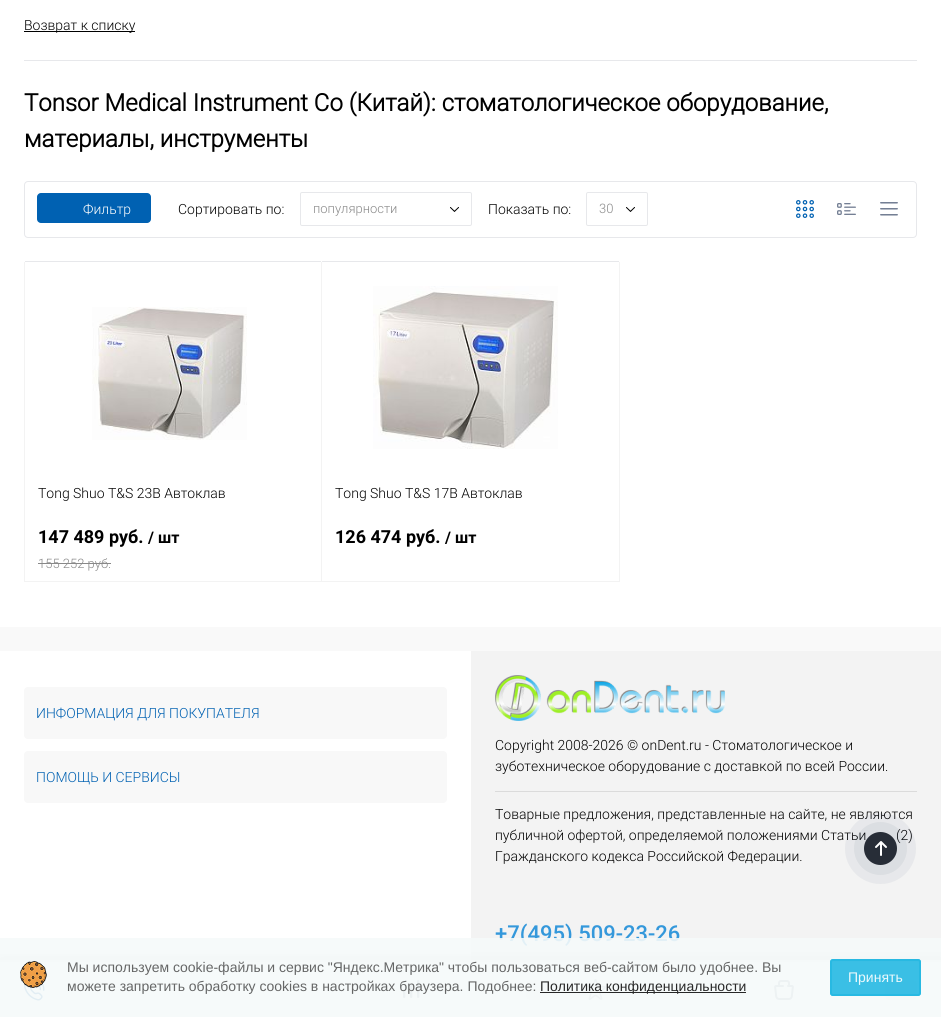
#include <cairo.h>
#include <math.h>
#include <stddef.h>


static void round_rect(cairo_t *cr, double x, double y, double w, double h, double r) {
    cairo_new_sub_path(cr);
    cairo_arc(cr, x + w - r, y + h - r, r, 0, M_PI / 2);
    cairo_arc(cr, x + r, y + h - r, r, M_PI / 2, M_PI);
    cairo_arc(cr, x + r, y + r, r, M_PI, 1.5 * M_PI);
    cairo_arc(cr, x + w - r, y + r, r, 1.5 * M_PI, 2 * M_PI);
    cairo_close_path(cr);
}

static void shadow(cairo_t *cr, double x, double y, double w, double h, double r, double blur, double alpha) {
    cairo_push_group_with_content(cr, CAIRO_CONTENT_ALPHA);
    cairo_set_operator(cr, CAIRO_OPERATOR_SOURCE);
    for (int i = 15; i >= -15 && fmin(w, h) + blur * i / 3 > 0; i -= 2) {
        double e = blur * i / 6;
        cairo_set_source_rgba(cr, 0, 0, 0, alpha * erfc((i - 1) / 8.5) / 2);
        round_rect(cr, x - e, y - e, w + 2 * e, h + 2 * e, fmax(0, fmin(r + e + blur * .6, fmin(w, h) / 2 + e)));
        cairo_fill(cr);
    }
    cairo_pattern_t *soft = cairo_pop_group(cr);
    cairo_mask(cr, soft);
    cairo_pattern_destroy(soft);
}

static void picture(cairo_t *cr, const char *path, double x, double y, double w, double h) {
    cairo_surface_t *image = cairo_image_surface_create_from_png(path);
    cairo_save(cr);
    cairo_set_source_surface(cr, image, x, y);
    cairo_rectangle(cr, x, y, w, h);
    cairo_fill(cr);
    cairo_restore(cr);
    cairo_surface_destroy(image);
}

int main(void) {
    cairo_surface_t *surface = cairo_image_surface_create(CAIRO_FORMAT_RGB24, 941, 1017);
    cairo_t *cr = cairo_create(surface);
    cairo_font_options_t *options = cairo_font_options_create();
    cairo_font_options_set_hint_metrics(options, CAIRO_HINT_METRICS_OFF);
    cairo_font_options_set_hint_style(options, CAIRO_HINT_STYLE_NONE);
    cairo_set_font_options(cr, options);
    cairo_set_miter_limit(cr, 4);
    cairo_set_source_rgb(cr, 1, 1, 1);
    cairo_paint(cr);
    cairo_set_source_rgb(cr, 0, 0, 0);
    cairo_rectangle(cr, 24, 31, 111, 1);
    cairo_fill(cr);
    cairo_select_font_face(cr, "Roboto Light", CAIRO_FONT_SLANT_NORMAL, CAIRO_FONT_WEIGHT_NORMAL);
    cairo_set_font_size(cr, 14);
    cairo_move_to(cr, 24, 30);
    cairo_show_text(cr, "Возврат к списку");
    cairo_set_source_rgb(cr, 0.906, 0.91, 0.918);
    cairo_rectangle(cr, 24, 60, 893, 1);
    cairo_fill(cr);
    cairo_select_font_face(cr, "Roboto", CAIRO_FONT_SLANT_NORMAL, CAIRO_FONT_WEIGHT_BOLD);
    cairo_set_font_size(cr, 24);
    cairo_set_source_rgb(cr, 0, 0, 0);
    cairo_move_to(cr, 24, 111);
    cairo_show_text(cr, "Tonsor Medical Instrument Co (Китай): стоматологическое оборудование,");
    cairo_move_to(cr, 24, 147);
    cairo_show_text(cr, "материалы, инструменты");
    round_rect(cr, 24.5, 181.5, 892, 56, 3.5);
    cairo_set_source_rgb(cr, 0.906, 0.91, 0.918);
    cairo_set_line_width(cr, 1);
    cairo_stroke(cr);
    cairo_set_source_rgb(cr, 0, 0.38, 0.698);
    round_rect(cr, 37, 193, 114, 30, 4);
    cairo_fill(cr);
    cairo_select_font_face(cr, "Roboto Light", CAIRO_FONT_SLANT_NORMAL, CAIRO_FONT_WEIGHT_NORMAL);
    cairo_set_font_size(cr, 14);
    cairo_set_source_rgb(cr, 1, 1, 1);
    cairo_move_to(cr, 83, 214);
    cairo_show_text(cr, "Фильтр");
    cairo_set_source_rgb(cr, 0, 0, 0);
    cairo_move_to(cr, 178, 214);
    cairo_show_text(cr, "Сортировать по:");
    round_rect(cr, 300.5, 192.5, 171, 33, 1.5);
    cairo_set_source_rgb(cr, 0.906, 0.91, 0.918);
    cairo_stroke(cr);
    cairo_set_font_size(cr, 13);
    cairo_set_source_rgb(cr, 0.533, 0.533, 0.533);
    cairo_move_to(cr, 313, 213);
    cairo_show_text(cr, "популярности");
    picture(cr, "img1.png", 450, 207, 9, 5);
    cairo_set_font_size(cr, 14);
    cairo_set_source_rgb(cr, 0, 0, 0);
    cairo_move_to(cr, 488, 214);
    cairo_show_text(cr, "Показать по:");
    round_rect(cr, 586.5, 192.5, 61, 33, 1.5);
    cairo_set_source_rgb(cr, 0.906, 0.91, 0.918);
    cairo_stroke(cr);
    cairo_set_font_size(cr, 13);
    cairo_set_source_rgb(cr, 0.533, 0.533, 0.533);
    cairo_move_to(cr, 599, 213);
    cairo_show_text(cr, "30");
    picture(cr, "img1.png", 626, 207, 9, 5);
    picture(cr, "img2.png", 796, 200, 18, 18);
    picture(cr, "img3.png", 837, 203, 19, 12);
    picture(cr, "img4.png", 880, 202, 18, 14);
    cairo_set_source_rgb(cr, 0.953, 0.953, 0.953);
    cairo_rectangle(cr, 24, 262, 1, 320);
    cairo_fill(cr);
    cairo_rectangle(cr, 321, 262, 1, 320);
    cairo_fill(cr);
    cairo_rectangle(cr, 25, 581, 297, 1);
    cairo_fill(cr);
    cairo_set_source_rgb(cr, 0.906, 0.91, 0.918);
    cairo_rectangle(cr, 25, 261, 296, 1);
    cairo_fill(cr);
    picture(cr, "img5.png", 92, 307, 155, 133);
    cairo_set_font_size(cr, 14);
    cairo_set_source_rgb(cr, 0, 0, 0);
    cairo_move_to(cr, 38, 498);
    cairo_show_text(cr, "Tong Shuo T&S 23B Автоклав");
    cairo_select_font_face(cr, "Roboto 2", CAIRO_FONT_SLANT_NORMAL, CAIRO_FONT_WEIGHT_BOLD);
    cairo_set_font_size(cr, 18);
    cairo_move_to(cr, 38, 543);
    cairo_show_text(cr, "147 489 руб.");
    cairo_set_font_size(cr, 16);
    cairo_move_to(cr, 148, 543);
    cairo_show_text(cr, "/ шт");
    cairo_select_font_face(cr, "Roboto Light", CAIRO_FONT_SLANT_NORMAL, CAIRO_FONT_WEIGHT_NORMAL);
    cairo_set_font_size(cr, 13);
    cairo_set_source_rgb(cr, 0.533, 0.533, 0.533);
    cairo_move_to(cr, 38, 568);
    cairo_show_text(cr, "155 252 руб.");
    cairo_rectangle(cr, 38, 563, 73, 1);
    cairo_fill(cr);
    cairo_set_source_rgb(cr, 0.953, 0.953, 0.953);
    cairo_rectangle(cr, 619, 262, 1, 320);
    cairo_fill(cr);
    cairo_rectangle(cr, 322, 581, 298, 1);
    cairo_fill(cr);
    cairo_set_source_rgb(cr, 0.906, 0.91, 0.918);
    cairo_rectangle(cr, 322, 261, 297, 1);
    cairo_fill(cr);
    picture(cr, "img6.png", 373, 286, 185, 163);
    cairo_set_font_size(cr, 14);
    cairo_set_source_rgb(cr, 0, 0, 0);
    cairo_move_to(cr, 335, 498);
    cairo_show_text(cr, "Tong Shuo T&S 17B Автоклав");
    cairo_select_font_face(cr, "Roboto 2", CAIRO_FONT_SLANT_NORMAL, CAIRO_FONT_WEIGHT_BOLD);
    cairo_set_font_size(cr, 18);
    cairo_move_to(cr, 335, 543);
    cairo_show_text(cr, "126 474 руб.");
    cairo_set_font_size(cr, 16);
    cairo_move_to(cr, 445, 543);
    cairo_show_text(cr, "/ шт");
    cairo_set_source_rgb(cr, 0.976, 0.976, 0.976);
    cairo_rectangle(cr, 0, 627, 941, 24);
    cairo_fill(cr);
    cairo_set_source_rgb(cr, 0.969, 0.969, 0.969);
    round_rect(cr, 24, 687, 423, 52, 4);
    cairo_fill(cr);
    cairo_select_font_face(cr, "Roboto Light", CAIRO_FONT_SLANT_NORMAL, CAIRO_FONT_WEIGHT_NORMAL);
    cairo_set_font_size(cr, 14);
    cairo_set_source_rgb(cr, 0, 0.38, 0.698);
    cairo_move_to(cr, 36, 718);
    cairo_show_text(cr, "ИНФОРМАЦИЯ ДЛЯ ПОКУПАТЕЛЯ");
    cairo_set_source_rgb(cr, 0.969, 0.969, 0.969);
    round_rect(cr, 24, 751, 423, 52, 4);
    cairo_fill(cr);
    cairo_set_source_rgb(cr, 0, 0.38, 0.698);
    cairo_move_to(cr, 36, 782);
    cairo_show_text(cr, "ПОМОЩЬ И СЕРВИСЫ");
    cairo_set_source_rgb(cr, 0.953, 0.953, 0.953);
    cairo_rectangle(cr, 471, 651, 470, 309);
    cairo_fill(cr);
    picture(cr, "img7.png", 495, 675, 230, 46);
    cairo_set_source_rgb(cr, 0, 0, 0);
    cairo_move_to(cr, 495, 750);
    cairo_show_text(cr, "Copyright 2008-2026 © onDent.ru - Стоматологическое и");
    cairo_move_to(cr, 495, 771);
    cairo_show_text(cr, "зуботехническое оборудование с доставкой по всей России.");
    cairo_set_source_rgb(cr, 0.859, 0.859, 0.859);
    cairo_rectangle(cr, 495, 791, 422, 1);
    cairo_fill(cr);
    cairo_set_source_rgb(cr, 0, 0, 0);
    cairo_move_to(cr, 495, 819);
    cairo_show_text(cr, "Товарные предложения, представленные на сайте, не являются");
    cairo_move_to(cr, 495, 840);
    cairo_show_text(cr, "публичной офертой, определяемой положениями Статьи");
    cairo_move_to(cr, 896, 840);
    cairo_show_text(cr, "(2)");
    cairo_move_to(cr, 495, 861);
    cairo_show_text(cr, "Гражданского кодекса Российской Федерации.");
    cairo_select_font_face(cr, "Roboto Medium", CAIRO_FONT_SLANT_NORMAL, CAIRO_FONT_WEIGHT_NORMAL);
    cairo_set_font_size(cr, 22);
    cairo_set_source_rgb(cr, 0.204, 0.596, 0.859);
    cairo_move_to(cr, 495, 941);
    cairo_show_text(cr, "+7(495) 509-23-26");
    cairo_set_source_rgb(cr, 0, 0, 0);
    shadow(cr, 1, 961, 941, 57, 0, 6, 0.25);
    cairo_set_source_rgb(cr, 1, 1, 1);
    cairo_rectangle(cr, 0, 962, 941, 55);
    cairo_fill(cr);
    cairo_set_source_rgb(cr, 0.953, 0.953, 0.953);
    cairo_rectangle(cr, 0, 960, 941, 2);
    cairo_fill(cr);
    picture(cr, "img8.png", 24, 980, 21, 21);
    picture(cr, "img9.png", 403, 980, 17, 18);
    cairo_set_source_rgb(cr, 0.965, 0.965, 0.965);
    round_rect(cr, 526, 980, 32, 20, 4);
    cairo_fill(cr);
    picture(cr, "img10.png", 585, 979, 21, 21);
    round_rect(cr, 712, 980, 32, 20, 4);
    cairo_fill(cr);
    picture(cr, "img11.png", 774, 980, 20, 20);
    round_rect(cr, 885, 980, 32, 20, 4);
    cairo_fill(cr);
    picture(cr, "img12.png", 845, 813, 71, 71);
    cairo_set_source_rgba(cr, 0.961, 0.98, 0.98, 0.9);
    cairo_rectangle(cr, 0, 938, 941, 79);
    cairo_fill(cr);
    picture(cr, "img13.png", 20, 961, 27, 27);
    cairo_select_font_face(cr, "Liberation Sans", CAIRO_FONT_SLANT_NORMAL, CAIRO_FONT_WEIGHT_NORMAL);
    cairo_set_font_size(cr, 14);
    cairo_set_source_rgb(cr, 0.396, 0.4, 0.4);
    cairo_move_to(cr, 67, 972);
    cairo_show_text(cr, "Мы используем cookie-файлы и сервис \"Яндекс.Метрика\" чтобы пользоваться веб-сайтом было удобнее. Вы");
    cairo_move_to(cr, 67, 991);
    cairo_show_text(cr, "можете запретить обработку сookies в настройках браузера. Подобнее:");
    cairo_set_source_rgba(cr, 0.067, 0.067, 0.067, 0.9);
    cairo_rectangle(cr, 540, 992, 206, 1);
    cairo_fill(cr);
    cairo_set_source_rgb(cr, 0.157, 0.157, 0.157);
    cairo_move_to(cr, 540, 991);
    cairo_show_text(cr, "Политика конфиденциальности");
    cairo_set_source_rgba(cr, 0.149, 0.722, 0.886, 0.9);
    round_rect(cr, 830, 959, 91, 37, 3);
    cairo_fill(cr);
    round_rect(cr, 831, 960, 89, 35, 2);
    cairo_set_line_width(cr, 2);
    cairo_stroke(cr);
    cairo_set_source_rgb(cr, 0.922, 0.976, 0.988);
    cairo_move_to(cr, 848, 982);
    cairo_show_text(cr, "Принять");
    cairo_surface_write_to_png(surface, "page.png");
    cairo_font_options_destroy(options);
    cairo_destroy(cr);
    cairo_surface_destroy(surface);
    return 0;
}
